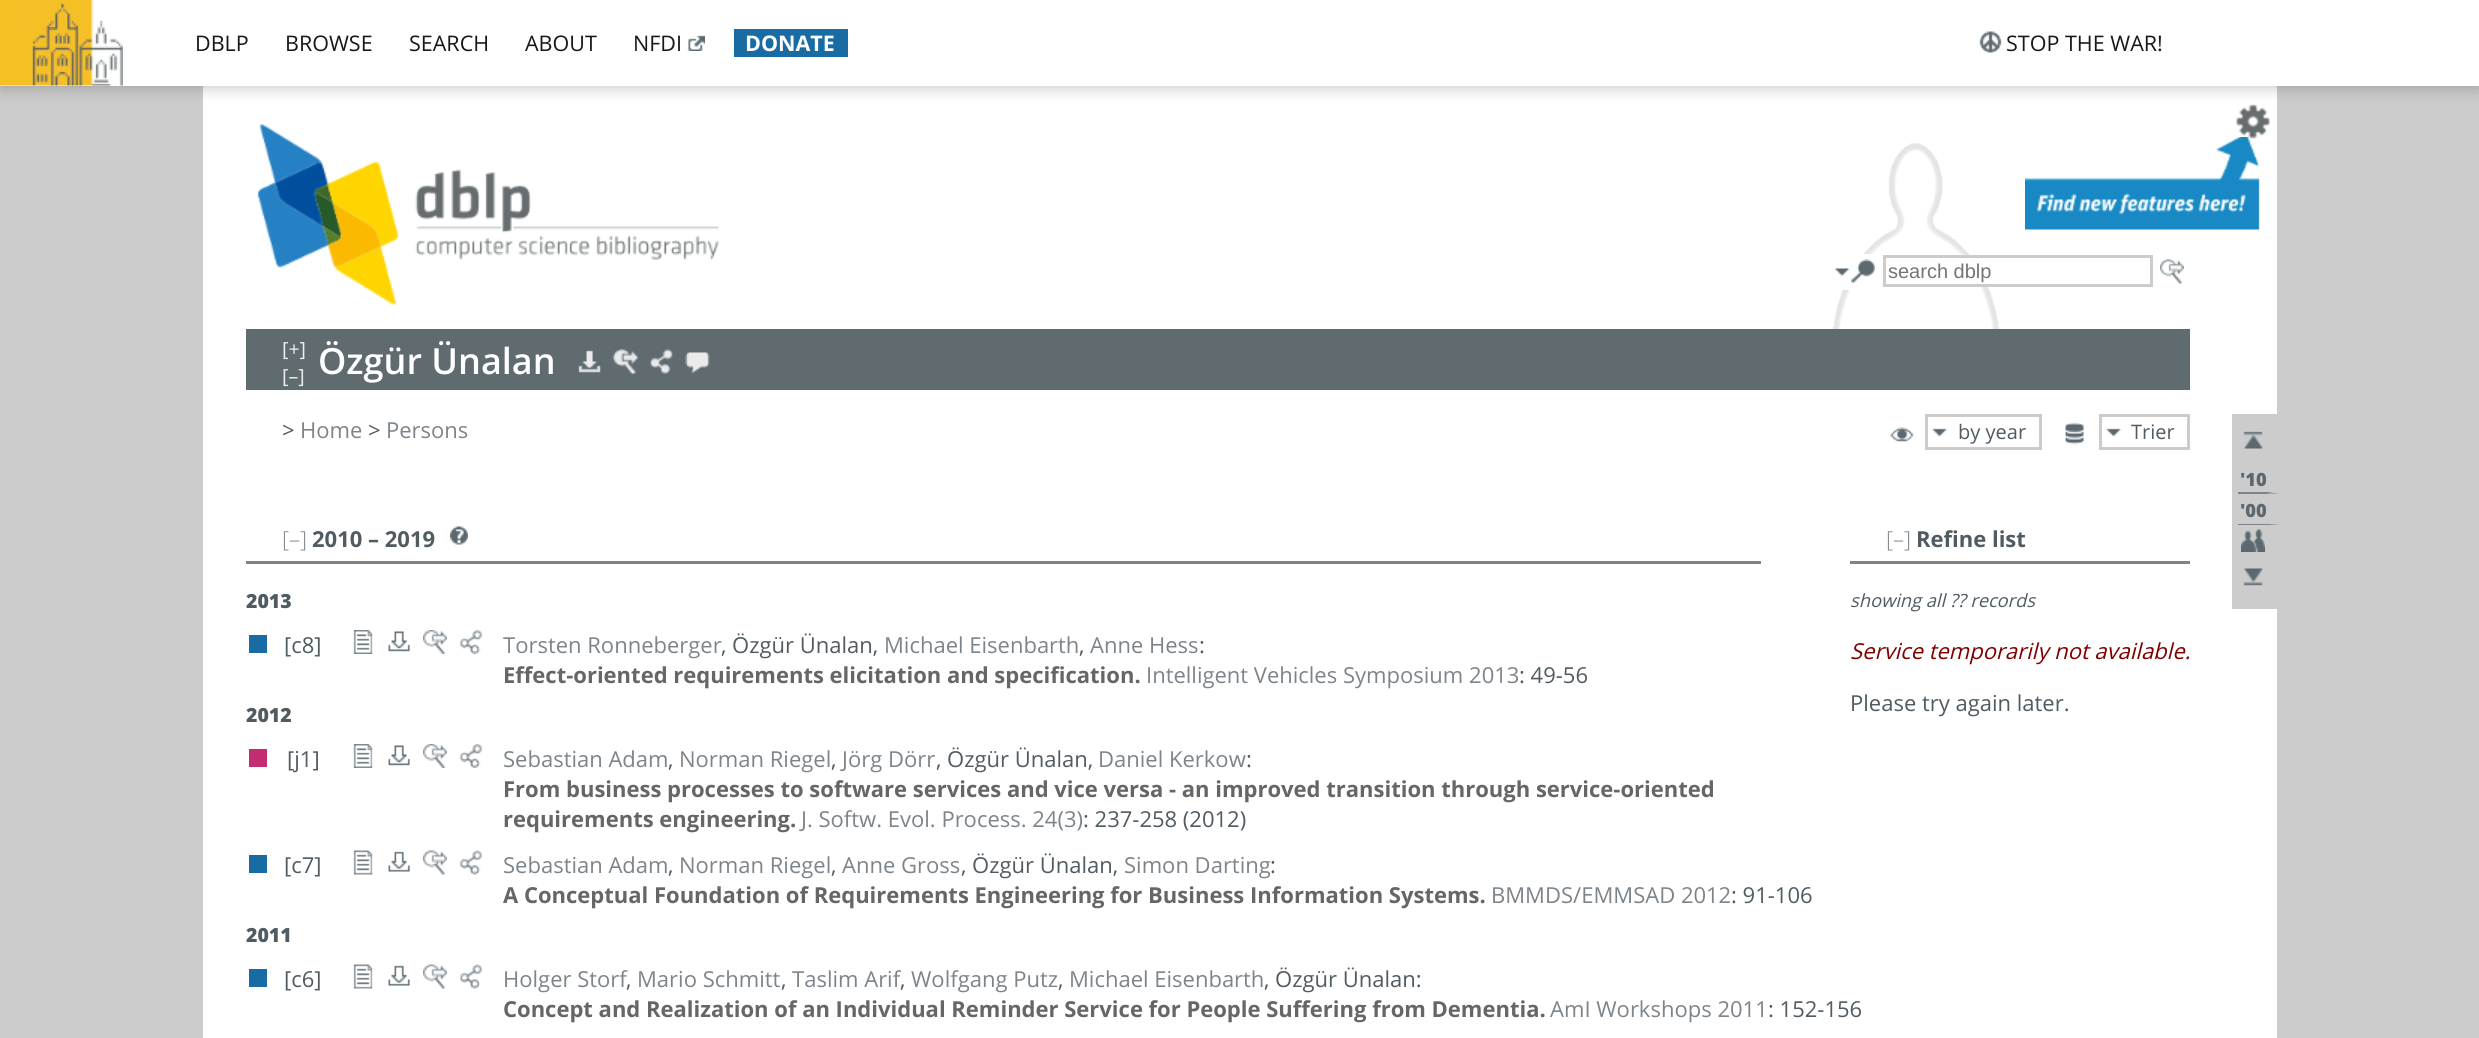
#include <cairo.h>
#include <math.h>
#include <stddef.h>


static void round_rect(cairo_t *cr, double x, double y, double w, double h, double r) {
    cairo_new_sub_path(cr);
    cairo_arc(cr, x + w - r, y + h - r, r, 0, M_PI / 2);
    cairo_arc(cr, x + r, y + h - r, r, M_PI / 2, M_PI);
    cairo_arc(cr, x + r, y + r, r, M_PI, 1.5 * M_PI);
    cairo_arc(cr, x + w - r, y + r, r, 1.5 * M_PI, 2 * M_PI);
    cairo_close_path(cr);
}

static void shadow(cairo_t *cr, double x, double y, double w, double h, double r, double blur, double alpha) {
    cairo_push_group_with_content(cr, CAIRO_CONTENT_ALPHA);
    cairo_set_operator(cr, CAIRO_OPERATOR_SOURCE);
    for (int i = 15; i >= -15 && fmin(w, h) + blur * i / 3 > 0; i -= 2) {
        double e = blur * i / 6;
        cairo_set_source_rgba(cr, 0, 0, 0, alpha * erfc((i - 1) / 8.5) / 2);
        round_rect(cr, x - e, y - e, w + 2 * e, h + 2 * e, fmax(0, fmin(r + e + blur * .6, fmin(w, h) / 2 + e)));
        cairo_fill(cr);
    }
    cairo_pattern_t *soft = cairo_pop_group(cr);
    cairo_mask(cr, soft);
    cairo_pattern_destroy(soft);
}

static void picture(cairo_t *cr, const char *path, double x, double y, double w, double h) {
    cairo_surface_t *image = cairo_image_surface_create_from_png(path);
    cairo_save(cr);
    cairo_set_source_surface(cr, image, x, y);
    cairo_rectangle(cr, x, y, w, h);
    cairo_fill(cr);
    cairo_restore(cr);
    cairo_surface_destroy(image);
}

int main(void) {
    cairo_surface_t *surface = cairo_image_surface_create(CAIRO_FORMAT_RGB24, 2479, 1038);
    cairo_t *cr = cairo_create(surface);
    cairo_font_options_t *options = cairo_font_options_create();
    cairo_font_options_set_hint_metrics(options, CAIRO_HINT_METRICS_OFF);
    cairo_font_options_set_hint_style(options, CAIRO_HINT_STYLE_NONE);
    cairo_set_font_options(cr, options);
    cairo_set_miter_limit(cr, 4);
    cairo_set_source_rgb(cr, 0.8, 0.8, 0.8);
    cairo_paint(cr);
    cairo_set_source_rgb(cr, 1, 1, 1);
    cairo_rectangle(cr, 203, 86, 2074, 952);
    cairo_fill(cr);
    picture(cr, "img7.png", 2025, 137, 235, 93);
    picture(cr, "img6.png", 2236, 104, 34, 35);
    cairo_set_source_rgb(cr, 0, 0, 0);
    shadow(cr, 0, 3, 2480, 86, 0, 7.5, 0.2);
    cairo_set_source_rgb(cr, 1, 1, 1);
    cairo_rectangle(cr, 0, 0, 2479, 86);
    cairo_fill(cr);
    picture(cr, "img1.png", 0, 0, 123, 86);
    cairo_select_font_face(cr, "Open Sans", CAIRO_FONT_SLANT_NORMAL, CAIRO_FONT_WEIGHT_NORMAL);
    cairo_set_font_size(cr, 21.5);
    cairo_set_source_rgb(cr, 0.086, 0.094, 0.106);
    cairo_move_to(cr, 195, 51);
    cairo_show_text(cr, "DBLP");
    cairo_move_to(cr, 285, 51);
    cairo_show_text(cr, "BROWSE");
    cairo_move_to(cr, 409, 51);
    cairo_show_text(cr, "SEARCH");
    cairo_move_to(cr, 525, 51);
    cairo_show_text(cr, "ABOUT");
    cairo_move_to(cr, 633, 51);
    cairo_show_text(cr, "NFDI");
    picture(cr, "img2.png", 687, 35, 18, 16);
    cairo_set_source_rgb(cr, 0.098, 0.424, 0.639);
    cairo_rectangle(cr, 734, 29, 114, 28);
    cairo_fill(cr);
    cairo_select_font_face(cr, "Open Sans", CAIRO_FONT_SLANT_NORMAL, CAIRO_FONT_WEIGHT_BOLD);
    cairo_set_source_rgb(cr, 1, 1, 1);
    cairo_move_to(cr, 745, 51);
    cairo_show_text(cr, "DONATE");
    picture(cr, "img3.png", 1979, 31, 23, 22);
    cairo_select_font_face(cr, "Open Sans", CAIRO_FONT_SLANT_NORMAL, CAIRO_FONT_WEIGHT_NORMAL);
    cairo_set_source_rgb(cr, 0.086, 0.094, 0.106);
    cairo_move_to(cr, 2006, 51);
    cairo_show_text(cr, "STOP THE WAR!");
    picture(cr, "img4.png", 1832, 143, 168, 186);
    picture(cr, "img5.png", 257, 124, 462, 181);
    cairo_set_source_rgb(cr, 1, 1, 1);
    cairo_rectangle(cr, 1842, 254, 30, 36);
    cairo_fill(cr);
    picture(cr, "img8.png", 1834, 268, 16, 9);
    picture(cr, "img9.png", 1851, 259, 24, 25);
    cairo_rectangle(cr, 1964, 258, 24, 26);
    cairo_fill(cr);
    cairo_rectangle(cr, 1884.5, 256.5, 267, 29);
    cairo_set_source_rgb(cr, 0.8, 0.8, 0.8);
    cairo_set_line_width(cr, 3);
    cairo_stroke(cr);
    cairo_select_font_face(cr, "Liberation Sans", CAIRO_FONT_SLANT_NORMAL, CAIRO_FONT_WEIGHT_NORMAL);
    cairo_set_font_size(cr, 20);
    cairo_set_source_rgb(cr, 0.459, 0.459, 0.459);
    cairo_move_to(cr, 1888, 278);
    cairo_show_text(cr, "search dblp");
    picture(cr, "img10.png", 2160, 259, 24, 25);
    cairo_set_source_rgb(cr, 0.376, 0.42, 0.439);
    cairo_rectangle(cr, 246, 329, 1944, 61);
    cairo_fill(cr);
    cairo_select_font_face(cr, "Open Sans", CAIRO_FONT_SLANT_NORMAL, CAIRO_FONT_WEIGHT_NORMAL);
    cairo_set_font_size(cr, 19.5);
    cairo_set_source_rgb(cr, 0.922, 0.922, 0.922);
    cairo_move_to(cr, 282, 356);
    cairo_show_text(cr, "[+]");
    cairo_move_to(cr, 282, 383);
    cairo_show_text(cr, "[–]");
    cairo_select_font_face(cr, "Open Sans SemiBold", CAIRO_FONT_SLANT_NORMAL, CAIRO_FONT_WEIGHT_NORMAL);
    cairo_set_font_size(cr, 36);
    cairo_set_source_rgb(cr, 1, 1, 1);
    cairo_move_to(cr, 318, 374);
    cairo_show_text(cr, "Özgür Ünalan");
    picture(cr, "img11.png", 578, 350, 23, 23);
    picture(cr, "img12.png", 613, 349, 25, 25);
    picture(cr, "img13.png", 649, 349, 24, 25);
    picture(cr, "img14.png", 685, 352, 25, 22);
    cairo_select_font_face(cr, "Open Sans", CAIRO_FONT_SLANT_NORMAL, CAIRO_FONT_WEIGHT_NORMAL);
    cairo_set_font_size(cr, 22);
    cairo_set_source_rgb(cr, 0.314, 0.357, 0.384);
    cairo_move_to(cr, 282, 438);
    cairo_show_text(cr, ">");
    cairo_set_source_rgb(cr, 0.49, 0.518, 0.541);
    cairo_move_to(cr, 300, 438);
    cairo_show_text(cr, "Home");
    cairo_set_source_rgb(cr, 0.314, 0.357, 0.384);
    cairo_move_to(cr, 368, 438);
    cairo_show_text(cr, ">");
    cairo_set_source_rgb(cr, 0.49, 0.518, 0.541);
    cairo_move_to(cr, 386, 438);
    cairo_show_text(cr, "Persons");
    picture(cr, "img15.png", 1890, 427, 24, 16);
    picture(cr, "img16.png", 1932, 428, 16, 9);
    cairo_rectangle(cr, 1926.5, 415.5, 114, 33);
    cairo_set_source_rgb(cr, 0.8, 0.8, 0.8);
    cairo_stroke(cr);
    cairo_set_font_size(cr, 20);
    cairo_set_source_rgb(cr, 0.314, 0.357, 0.384);
    cairo_move_to(cr, 1958, 439);
    cairo_show_text(cr, "by year");
    picture(cr, "img17.png", 2065, 422, 19, 23);
    picture(cr, "img16.png", 2106, 428, 16, 9);
    cairo_rectangle(cr, 2100.5, 415.5, 88, 33);
    cairo_set_source_rgb(cr, 0.8, 0.8, 0.8);
    cairo_stroke(cr);
    cairo_set_source_rgb(cr, 0.314, 0.357, 0.384);
    cairo_move_to(cr, 2131, 439);
    cairo_show_text(cr, "Trier");
    cairo_set_source_rgb(cr, 0.8, 0.8, 0.8);
    cairo_rectangle(cr, 2232, 414, 45, 195);
    cairo_fill(cr);
    picture(cr, "img18.png", 2243, 431, 20, 18);
    cairo_set_source_rgb(cr, 0.49, 0.518, 0.541);
    cairo_new_path(cr);
    cairo_move_to(cr, 2280, 494);
    cairo_line_to(cr, 2238, 494);
    cairo_line_to(cr, 2238, 492);
    cairo_line_to(cr, 2268, 492);
    cairo_close_path(cr);
    cairo_fill(cr);
    cairo_select_font_face(cr, "Open Sans ExtraBold", CAIRO_FONT_SLANT_NORMAL, CAIRO_FONT_WEIGHT_NORMAL);
    cairo_set_font_size(cr, 18.25);
    cairo_set_source_rgb(cr, 0.357, 0.408, 0.439);
    cairo_move_to(cr, 2240, 486);
    cairo_show_text(cr, "'10");
    cairo_set_source_rgb(cr, 0.8, 0.8, 0.8);
    cairo_new_path(cr);
    cairo_move_to(cr, 2280, 493.5);
    cairo_line_to(cr, 2280, 525);
    cairo_line_to(cr, 2268, 523.5);
    cairo_line_to(cr, 2268, 493.5);
    cairo_close_path(cr);
    cairo_fill(cr);
    cairo_set_source_rgb(cr, 0.49, 0.518, 0.541);
    cairo_new_path(cr);
    cairo_move_to(cr, 2280, 525);
    cairo_line_to(cr, 2238, 525);
    cairo_line_to(cr, 2238, 524);
    cairo_line_to(cr, 2268, 524);
    cairo_close_path(cr);
    cairo_fill(cr);
    cairo_set_source_rgb(cr, 0.357, 0.408, 0.439);
    cairo_move_to(cr, 2240, 517);
    cairo_show_text(cr, "'00");
    picture(cr, "img19.png", 2241, 529, 24, 23);
    picture(cr, "img20.png", 2243, 568, 20, 18);
    cairo_set_source_rgb(cr, 0.49, 0.518, 0.541);
    cairo_rectangle(cr, 246, 561, 1515, 3);
    cairo_fill(cr);
    cairo_select_font_face(cr, "Open Sans Light", CAIRO_FONT_SLANT_NORMAL, CAIRO_FONT_WEIGHT_NORMAL);
    cairo_set_font_size(cr, 22);
    cairo_move_to(cr, 282, 547);
    cairo_show_text(cr, "[–]");
    cairo_select_font_face(cr, "Open Sans", CAIRO_FONT_SLANT_NORMAL, CAIRO_FONT_WEIGHT_BOLD);
    cairo_set_source_rgb(cr, 0.314, 0.357, 0.384);
    cairo_move_to(cr, 312, 547);
    cairo_show_text(cr, "2010 – 2019");
    picture(cr, "img21.png", 450, 526, 18, 19);
    cairo_select_font_face(cr, "Open Sans ExtraBold", CAIRO_FONT_SLANT_NORMAL, CAIRO_FONT_WEIGHT_NORMAL);
    cairo_set_font_size(cr, 19.5);
    cairo_move_to(cr, 246, 608);
    cairo_show_text(cr, "2013");
    cairo_set_source_rgb(cr, 0.098, 0.424, 0.639);
    cairo_rectangle(cr, 249, 635, 18, 18);
    cairo_fill(cr);
    cairo_select_font_face(cr, "Open Sans", CAIRO_FONT_SLANT_NORMAL, CAIRO_FONT_WEIGHT_NORMAL);
    cairo_set_font_size(cr, 22);
    cairo_set_source_rgb(cr, 0.314, 0.357, 0.384);
    cairo_move_to(cr, 284, 653);
    cairo_show_text(cr, "[c8]");
    picture(cr, "img22.png", 353, 630, 20, 24);
    picture(cr, "img23.png", 388, 631, 22, 21);
    picture(cr, "img24.png", 423, 630, 24, 24);
    picture(cr, "img25.png", 459, 630, 24, 24);
    cairo_set_source_rgb(cr, 0.49, 0.518, 0.541);
    cairo_move_to(cr, 503, 653);
    cairo_show_text(cr, "Torsten Ronneberger");
    cairo_set_source_rgb(cr, 0.314, 0.357, 0.384);
    cairo_move_to(cr, 721, 653);
    cairo_show_text(cr, ", Özgür Ünalan,");
    cairo_set_source_rgb(cr, 0.49, 0.518, 0.541);
    cairo_move_to(cr, 884, 653);
    cairo_show_text(cr, "Michael Eisenbarth");
    cairo_set_source_rgb(cr, 0.314, 0.357, 0.384);
    cairo_move_to(cr, 1079, 653);
    cairo_show_text(cr, ",");
    cairo_set_source_rgb(cr, 0.49, 0.518, 0.541);
    cairo_move_to(cr, 1090, 653);
    cairo_show_text(cr, "Anne Hess");
    cairo_set_source_rgb(cr, 0.314, 0.357, 0.384);
    cairo_move_to(cr, 1199, 653);
    cairo_show_text(cr, ":");
    cairo_select_font_face(cr, "Open Sans", CAIRO_FONT_SLANT_NORMAL, CAIRO_FONT_WEIGHT_BOLD);
    cairo_set_source_rgb(cr, 0.4, 0.4, 0.4);
    cairo_move_to(cr, 503, 683);
    cairo_show_text(cr, "Effect-oriented requirements elicitation and specification.");
    cairo_select_font_face(cr, "Open Sans", CAIRO_FONT_SLANT_NORMAL, CAIRO_FONT_WEIGHT_NORMAL);
    cairo_set_source_rgb(cr, 0.49, 0.518, 0.541);
    cairo_move_to(cr, 1146, 683);
    cairo_show_text(cr, "Intelligent Vehicles Symposium 2013");
    cairo_set_source_rgb(cr, 0.314, 0.357, 0.384);
    cairo_move_to(cr, 1519, 683);
    cairo_show_text(cr, ": 49-56");
    cairo_select_font_face(cr, "Open Sans ExtraBold", CAIRO_FONT_SLANT_NORMAL, CAIRO_FONT_WEIGHT_NORMAL);
    cairo_set_font_size(cr, 19.5);
    cairo_move_to(cr, 246, 722);
    cairo_show_text(cr, "2012");
    cairo_set_source_rgb(cr, 0.765, 0.169, 0.447);
    cairo_rectangle(cr, 249, 749, 18, 18);
    cairo_fill(cr);
    cairo_select_font_face(cr, "Open Sans", CAIRO_FONT_SLANT_NORMAL, CAIRO_FONT_WEIGHT_NORMAL);
    cairo_set_font_size(cr, 22);
    cairo_set_source_rgb(cr, 0.314, 0.357, 0.384);
    cairo_move_to(cr, 287, 767);
    cairo_show_text(cr, "[j1]");
    picture(cr, "img22.png", 353, 744, 20, 24);
    picture(cr, "img23.png", 388, 745, 22, 21);
    picture(cr, "img24.png", 423, 744, 24, 24);
    picture(cr, "img25.png", 459, 744, 24, 24);
    cairo_set_source_rgb(cr, 0.49, 0.518, 0.541);
    cairo_move_to(cr, 503, 767);
    cairo_show_text(cr, "Sebastian Adam");
    cairo_set_source_rgb(cr, 0.314, 0.357, 0.384);
    cairo_move_to(cr, 668, 767);
    cairo_show_text(cr, ",");
    cairo_set_source_rgb(cr, 0.49, 0.518, 0.541);
    cairo_move_to(cr, 679, 767);
    cairo_show_text(cr, "Norman Riegel");
    cairo_set_source_rgb(cr, 0.314, 0.357, 0.384);
    cairo_move_to(cr, 831, 767);
    cairo_show_text(cr, ",");
    cairo_set_source_rgb(cr, 0.49, 0.518, 0.541);
    cairo_move_to(cr, 842, 767);
    cairo_show_text(cr, "Jörg Dörr");
    cairo_set_source_rgb(cr, 0.314, 0.357, 0.384);
    cairo_move_to(cr, 936, 767);
    cairo_show_text(cr, ", Özgür Ünalan,");
    cairo_set_source_rgb(cr, 0.49, 0.518, 0.541);
    cairo_move_to(cr, 1098, 767);
    cairo_show_text(cr, "Daniel Kerkow");
    cairo_set_source_rgb(cr, 0.314, 0.357, 0.384);
    cairo_move_to(cr, 1246, 767);
    cairo_show_text(cr, ":");
    cairo_select_font_face(cr, "Open Sans", CAIRO_FONT_SLANT_NORMAL, CAIRO_FONT_WEIGHT_BOLD);
    cairo_set_source_rgb(cr, 0.4, 0.4, 0.4);
    cairo_move_to(cr, 503, 797);
    cairo_show_text(cr, "From business processes to software services and vice versa - an improved transition through service-oriented");
    cairo_move_to(cr, 503, 827);
    cairo_show_text(cr, "requirements engineering.");
    cairo_select_font_face(cr, "Open Sans", CAIRO_FONT_SLANT_NORMAL, CAIRO_FONT_WEIGHT_NORMAL);
    cairo_set_source_rgb(cr, 0.49, 0.518, 0.541);
    cairo_move_to(cr, 801, 827);
    cairo_show_text(cr, "J. Softw. Evol. Process. 24(3)");
    cairo_set_source_rgb(cr, 0.314, 0.357, 0.384);
    cairo_move_to(cr, 1083, 827);
    cairo_show_text(cr, ": 237-258 (2012)");
    cairo_set_source_rgb(cr, 0.098, 0.424, 0.639);
    cairo_rectangle(cr, 249, 855, 18, 18);
    cairo_fill(cr);
    cairo_set_source_rgb(cr, 0.314, 0.357, 0.384);
    cairo_move_to(cr, 284, 873);
    cairo_show_text(cr, "[c7]");
    picture(cr, "img26.png", 353, 850, 20, 25);
    picture(cr, "img27.png", 388, 851, 22, 21);
    picture(cr, "img28.png", 423, 850, 24, 25);
    picture(cr, "img29.png", 459, 850, 24, 25);
    cairo_set_source_rgb(cr, 0.49, 0.518, 0.541);
    cairo_move_to(cr, 503, 873);
    cairo_show_text(cr, "Sebastian Adam");
    cairo_set_source_rgb(cr, 0.314, 0.357, 0.384);
    cairo_move_to(cr, 668, 873);
    cairo_show_text(cr, ",");
    cairo_set_source_rgb(cr, 0.49, 0.518, 0.541);
    cairo_move_to(cr, 679, 873);
    cairo_show_text(cr, "Norman Riegel");
    cairo_set_source_rgb(cr, 0.314, 0.357, 0.384);
    cairo_move_to(cr, 831, 873);
    cairo_show_text(cr, ",");
    cairo_set_source_rgb(cr, 0.49, 0.518, 0.541);
    cairo_move_to(cr, 842, 873);
    cairo_show_text(cr, "Anne Gross");
    cairo_set_source_rgb(cr, 0.314, 0.357, 0.384);
    cairo_move_to(cr, 961, 873);
    cairo_show_text(cr, ", Özgür Ünalan,");
    cairo_set_source_rgb(cr, 0.49, 0.518, 0.541);
    cairo_move_to(cr, 1124, 873);
    cairo_show_text(cr, "Simon Darting");
    cairo_set_source_rgb(cr, 0.314, 0.357, 0.384);
    cairo_move_to(cr, 1270, 873);
    cairo_show_text(cr, ":");
    cairo_select_font_face(cr, "Open Sans", CAIRO_FONT_SLANT_NORMAL, CAIRO_FONT_WEIGHT_BOLD);
    cairo_set_source_rgb(cr, 0.4, 0.4, 0.4);
    cairo_move_to(cr, 503, 903);
    cairo_show_text(cr, "A Conceptual Foundation of Requirements Engineering for Business Information Systems.");
    cairo_select_font_face(cr, "Open Sans", CAIRO_FONT_SLANT_NORMAL, CAIRO_FONT_WEIGHT_NORMAL);
    cairo_set_source_rgb(cr, 0.49, 0.518, 0.541);
    cairo_move_to(cr, 1491, 903);
    cairo_show_text(cr, "BMMDS/EMMSAD 2012");
    cairo_set_source_rgb(cr, 0.314, 0.357, 0.384);
    cairo_move_to(cr, 1731, 903);
    cairo_show_text(cr, ": 91-106");
    cairo_select_font_face(cr, "Open Sans ExtraBold", CAIRO_FONT_SLANT_NORMAL, CAIRO_FONT_WEIGHT_NORMAL);
    cairo_set_font_size(cr, 19.5);
    cairo_move_to(cr, 246, 942);
    cairo_show_text(cr, "2011");
    cairo_set_source_rgb(cr, 0.098, 0.424, 0.639);
    cairo_rectangle(cr, 249, 969, 18, 18);
    cairo_fill(cr);
    cairo_select_font_face(cr, "Open Sans", CAIRO_FONT_SLANT_NORMAL, CAIRO_FONT_WEIGHT_NORMAL);
    cairo_set_font_size(cr, 22);
    cairo_set_source_rgb(cr, 0.314, 0.357, 0.384);
    cairo_move_to(cr, 284, 987);
    cairo_show_text(cr, "[c6]");
    picture(cr, "img26.png", 353, 964, 20, 25);
    picture(cr, "img27.png", 388, 965, 22, 21);
    picture(cr, "img28.png", 423, 964, 24, 25);
    picture(cr, "img29.png", 459, 964, 24, 25);
    cairo_set_source_rgb(cr, 0.49, 0.518, 0.541);
    cairo_move_to(cr, 503, 987);
    cairo_show_text(cr, "Holger Storf");
    cairo_set_source_rgb(cr, 0.314, 0.357, 0.384);
    cairo_move_to(cr, 626, 987);
    cairo_show_text(cr, ",");
    cairo_set_source_rgb(cr, 0.49, 0.518, 0.541);
    cairo_move_to(cr, 637, 987);
    cairo_show_text(cr, "Mario Schmitt");
    cairo_set_source_rgb(cr, 0.314, 0.357, 0.384);
    cairo_move_to(cr, 781, 987);
    cairo_show_text(cr, ",");
    cairo_set_source_rgb(cr, 0.49, 0.518, 0.541);
    cairo_move_to(cr, 792, 987);
    cairo_show_text(cr, "Taslim Arif");
    cairo_set_source_rgb(cr, 0.314, 0.357, 0.384);
    cairo_move_to(cr, 900, 987);
    cairo_show_text(cr, ",");
    cairo_set_source_rgb(cr, 0.49, 0.518, 0.541);
    cairo_move_to(cr, 911, 987);
    cairo_show_text(cr, "Wolfgang Putz");
    cairo_set_source_rgb(cr, 0.314, 0.357, 0.384);
    cairo_move_to(cr, 1058, 987);
    cairo_show_text(cr, ",");
    cairo_set_source_rgb(cr, 0.49, 0.518, 0.541);
    cairo_move_to(cr, 1069, 987);
    cairo_show_text(cr, "Michael Eisenbarth");
    cairo_set_source_rgb(cr, 0.314, 0.357, 0.384);
    cairo_move_to(cr, 1264, 987);
    cairo_show_text(cr, ", Özgür Ünalan:");
    cairo_select_font_face(cr, "Open Sans", CAIRO_FONT_SLANT_NORMAL, CAIRO_FONT_WEIGHT_BOLD);
    cairo_set_source_rgb(cr, 0.4, 0.4, 0.4);
    cairo_move_to(cr, 503, 1017);
    cairo_show_text(cr, "Concept and Realization of an Individual Reminder Service for People Suffering from Dementia.");
    cairo_select_font_face(cr, "Open Sans", CAIRO_FONT_SLANT_NORMAL, CAIRO_FONT_WEIGHT_NORMAL);
    cairo_set_source_rgb(cr, 0.49, 0.518, 0.541);
    cairo_move_to(cr, 1550, 1017);
    cairo_show_text(cr, "AmI Workshops 2011");
    cairo_set_source_rgb(cr, 0.314, 0.357, 0.384);
    cairo_move_to(cr, 1768, 1017);
    cairo_show_text(cr, ": 152-156");
    cairo_set_source_rgb(cr, 0.49, 0.518, 0.541);
    cairo_rectangle(cr, 1850, 561, 340, 3);
    cairo_fill(cr);
    cairo_select_font_face(cr, "Open Sans Light", CAIRO_FONT_SLANT_NORMAL, CAIRO_FONT_WEIGHT_NORMAL);
    cairo_move_to(cr, 1886, 547);
    cairo_show_text(cr, "[–]");
    cairo_select_font_face(cr, "Open Sans", CAIRO_FONT_SLANT_NORMAL, CAIRO_FONT_WEIGHT_BOLD);
    cairo_set_source_rgb(cr, 0.314, 0.357, 0.384);
    cairo_move_to(cr, 1916, 547);
    cairo_show_text(cr, "Refine list");
    cairo_select_font_face(cr, "Open Sans", CAIRO_FONT_SLANT_ITALIC, CAIRO_FONT_WEIGHT_NORMAL);
    cairo_set_font_size(cr, 18.25);
    cairo_move_to(cr, 1850, 607);
    cairo_show_text(cr, "showing all ?\077 records");
    cairo_set_font_size(cr, 22);
    cairo_set_source_rgb(cr, 0.502, 0, 0);
    cairo_move_to(cr, 1850, 659);
    cairo_show_text(cr, "Service temporarily not available.");
    cairo_select_font_face(cr, "Open Sans", CAIRO_FONT_SLANT_NORMAL, CAIRO_FONT_WEIGHT_NORMAL);
    cairo_set_source_rgb(cr, 0.314, 0.357, 0.384);
    cairo_move_to(cr, 1850, 711);
    cairo_show_text(cr, "Please try again later.");
    cairo_surface_write_to_png(surface, "page.png");
    cairo_font_options_destroy(options);
    cairo_destroy(cr);
    cairo_surface_destroy(surface);
    return 0;
}
